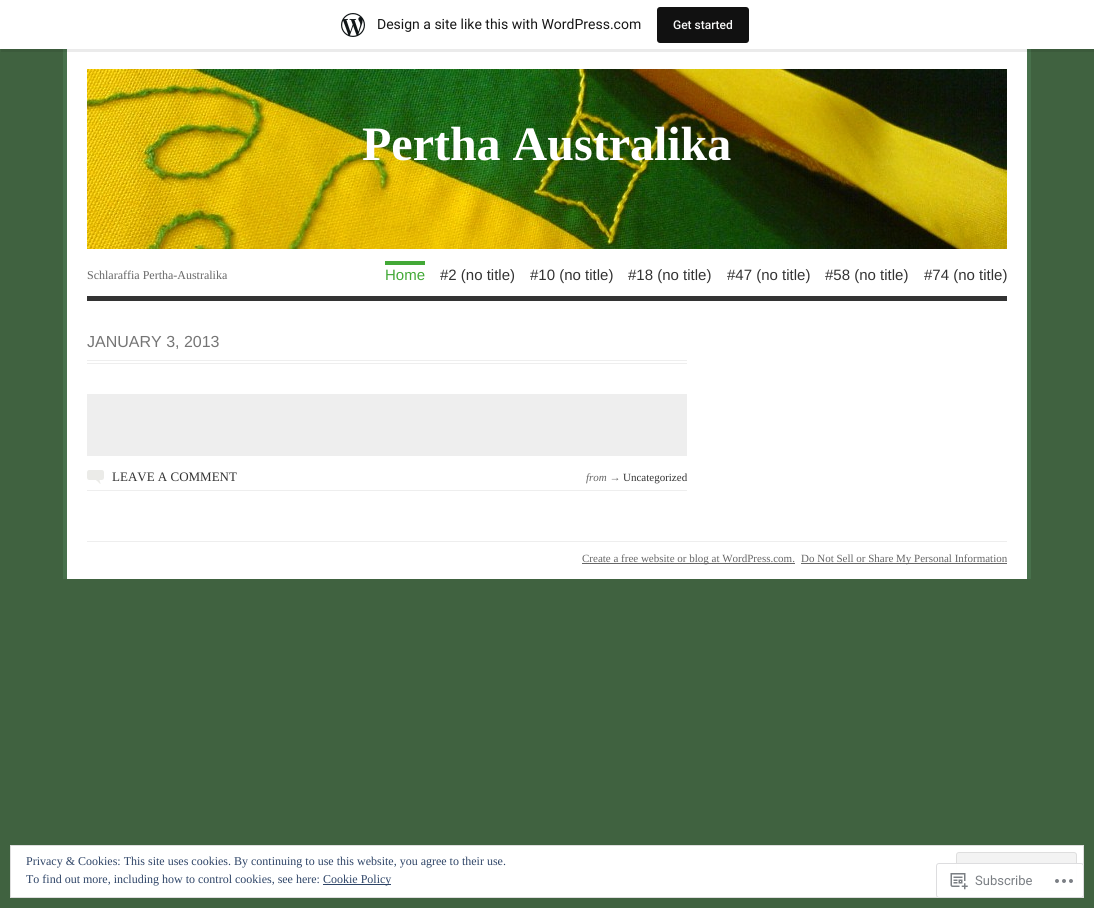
#include <cairo.h>
#include <math.h>
#include <stddef.h>


static void round_rect(cairo_t *cr, double x, double y, double w, double h, double r) {
    cairo_new_sub_path(cr);
    cairo_arc(cr, x + w - r, y + h - r, r, 0, M_PI / 2);
    cairo_arc(cr, x + r, y + h - r, r, M_PI / 2, M_PI);
    cairo_arc(cr, x + r, y + r, r, M_PI, 1.5 * M_PI);
    cairo_arc(cr, x + w - r, y + r, r, 1.5 * M_PI, 2 * M_PI);
    cairo_close_path(cr);
}

static void picture(cairo_t *cr, const char *path, double x, double y, double w, double h) {
    cairo_surface_t *image = cairo_image_surface_create_from_png(path);
    cairo_save(cr);
    cairo_set_source_surface(cr, image, x, y);
    cairo_rectangle(cr, x, y, w, h);
    cairo_fill(cr);
    cairo_restore(cr);
    cairo_surface_destroy(image);
}

int main(void) {
    cairo_surface_t *surface = cairo_image_surface_create(CAIRO_FORMAT_RGB24, 1094, 908);
    cairo_t *cr = cairo_create(surface);
    cairo_font_options_t *options = cairo_font_options_create();
    cairo_font_options_set_hint_metrics(options, CAIRO_HINT_METRICS_OFF);
    cairo_font_options_set_hint_style(options, CAIRO_HINT_STYLE_NONE);
    cairo_set_font_options(cr, options);
    cairo_set_miter_limit(cr, 4);
    cairo_set_source_rgb(cr, 0.251, 0.384, 0.251);
    cairo_paint(cr);
    cairo_set_source_rgb(cr, 1, 1, 1);
    cairo_rectangle(cr, 67, 49, 960, 530);
    cairo_fill(cr);
    cairo_set_source_rgb(cr, 0.282, 0.443, 0.298);
    cairo_rectangle(cr, 1027, 49, 4, 530);
    cairo_fill(cr);
    cairo_rectangle(cr, 63, 49, 4, 530);
    cairo_fill(cr);
    cairo_set_source_rgba(cr, 0, 0, 0, 0.08);
    cairo_new_path(cr);
    cairo_move_to(cr, 1, 49);
    cairo_line_to(cr, 1, 52);
    cairo_line_to(cr, 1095, 52);
    cairo_line_to(cr, 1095, 3);
    cairo_line_to(cr, 1094, 3);
    cairo_line_to(cr, 1094, 49);
    cairo_close_path(cr);
    cairo_fill(cr);
    cairo_set_source_rgb(cr, 1, 1, 1);
    cairo_rectangle(cr, 0, 0, 1094, 49);
    cairo_fill(cr);
    picture(cr, "img1.png", 341, 13, 24, 24);
    cairo_select_font_face(cr, "Roboto", CAIRO_FONT_SLANT_NORMAL, CAIRO_FONT_WEIGHT_NORMAL);
    cairo_set_font_size(cr, 14);
    cairo_set_source_rgb(cr, 0.09, 0.09, 0.09);
    cairo_move_to(cr, 377, 29);
    cairo_show_text(cr, "Design a site like this with WordPress.com");
    cairo_set_source_rgb(cr, 0.067, 0.067, 0.067);
    round_rect(cr, 657, 7, 92, 36, 3);
    cairo_fill(cr);
    cairo_select_font_face(cr, "Roboto Medium", CAIRO_FONT_SLANT_NORMAL, CAIRO_FONT_WEIGHT_NORMAL);
    cairo_set_font_size(cr, 12);
    cairo_set_source_rgb(cr, 0.965, 0.969, 0.969);
    cairo_move_to(cr, 673, 29);
    cairo_show_text(cr, "Get started");
    cairo_set_source_rgb(cr, 0.2, 0.2, 0.2);
    cairo_rectangle(cr, 87, 296, 920, 5);
    cairo_fill(cr);
    picture(cr, "img2.png", 87, 69, 920, 180);
    cairo_select_font_face(cr, "Liberation Serif", CAIRO_FONT_SLANT_NORMAL, CAIRO_FONT_WEIGHT_BOLD);
    cairo_set_font_size(cr, 48);
    cairo_set_source_rgb(cr, 1, 1, 1);
    cairo_move_to(cr, 362, 160);
    cairo_show_text(cr, "Pertha Australika");
    cairo_select_font_face(cr, "Liberation Serif", CAIRO_FONT_SLANT_NORMAL, CAIRO_FONT_WEIGHT_NORMAL);
    cairo_set_font_size(cr, 12);
    cairo_set_source_rgb(cr, 0.4, 0.4, 0.4);
    cairo_move_to(cr, 87, 279);
    cairo_show_text(cr, "Schlaraffia Pertha-Australika");
    cairo_select_font_face(cr, "Liberation Sans", CAIRO_FONT_SLANT_NORMAL, CAIRO_FONT_WEIGHT_NORMAL);
    cairo_set_font_size(cr, 15);
    cairo_set_source_rgb(cr, 0.263, 0.663, 0.216);
    cairo_move_to(cr, 385, 280);
    cairo_show_text(cr, "Home");
    cairo_rectangle(cr, 385, 261, 40, 4);
    cairo_fill(cr);
    cairo_set_source_rgb(cr, 0.2, 0.2, 0.2);
    cairo_move_to(cr, 440, 280);
    cairo_show_text(cr, "#2 (no title)");
    cairo_move_to(cr, 530, 280);
    cairo_show_text(cr, "#10 (no title)");
    cairo_move_to(cr, 628, 280);
    cairo_show_text(cr, "#18 (no title)");
    cairo_move_to(cr, 727, 280);
    cairo_show_text(cr, "#47 (no title)");
    cairo_move_to(cr, 825, 280);
    cairo_show_text(cr, "#58 (no title)");
    cairo_move_to(cr, 924, 280);
    cairo_show_text(cr, "#74 (no title)");
    cairo_set_source_rgb(cr, 0.933, 0.933, 0.933);
    cairo_rectangle(cr, 87, 360, 600, 1);
    cairo_fill(cr);
    cairo_rectangle(cr, 87, 363, 600, 1);
    cairo_fill(cr);
    cairo_set_font_size(cr, 16);
    cairo_set_source_rgb(cr, 0.459, 0.459, 0.459);
    cairo_move_to(cr, 87, 347);
    cairo_show_text(cr, "JANUARY 3, 2013");
    cairo_set_source_rgb(cr, 0.933, 0.933, 0.933);
    cairo_rectangle(cr, 87, 394, 600, 62);
    cairo_fill(cr);
    cairo_rectangle(cr, 87, 490, 600, 1);
    cairo_fill(cr);
    picture(cr, "img3.png", 87, 470, 17, 14);
    cairo_select_font_face(cr, "Liberation Serif", CAIRO_FONT_SLANT_NORMAL, CAIRO_FONT_WEIGHT_NORMAL);
    cairo_set_font_size(cr, 13);
    cairo_set_source_rgb(cr, 0.2, 0.2, 0.2);
    cairo_move_to(cr, 112, 481);
    cairo_show_text(cr, "LEAVE A COMMENT");
    cairo_select_font_face(cr, "Liberation Serif", CAIRO_FONT_SLANT_ITALIC, CAIRO_FONT_WEIGHT_NORMAL);
    cairo_set_font_size(cr, 11);
    cairo_set_source_rgb(cr, 0.4, 0.4, 0.4);
    cairo_move_to(cr, 586, 481);
    cairo_show_text(cr, "from →");
    cairo_select_font_face(cr, "Liberation Serif", CAIRO_FONT_SLANT_NORMAL, CAIRO_FONT_WEIGHT_NORMAL);
    cairo_set_source_rgb(cr, 0.2, 0.2, 0.2);
    cairo_move_to(cr, 623, 481);
    cairo_show_text(cr, "Uncategorized");
    cairo_set_source_rgb(cr, 0.933, 0.933, 0.933);
    cairo_rectangle(cr, 87, 541, 920, 1);
    cairo_fill(cr);
    cairo_set_source_rgb(cr, 0.4, 0.4, 0.4);
    cairo_rectangle(cr, 582, 563, 213, 1);
    cairo_fill(cr);
    cairo_move_to(cr, 582, 562);
    cairo_show_text(cr, "Create a free website or blog at WordPress.com.");
    cairo_rectangle(cr, 801, 563, 206, 1);
    cairo_fill(cr);
    cairo_move_to(cr, 801, 562);
    cairo_show_text(cr, "Do Not Sell or Share My Personal Information");
    cairo_set_source_rgb(cr, 1, 1, 1);
    cairo_rectangle(cr, 10.5, 845.5, 1073, 52);
    cairo_fill_preserve(cr);
    cairo_set_source_rgb(cr, 0.871, 0.871, 0.871);
    cairo_set_line_width(cr, 1);
    cairo_stroke(cr);
    cairo_set_font_size(cr, 12);
    cairo_set_source_rgb(cr, 0.18, 0.267, 0.404);
    cairo_move_to(cr, 26, 865);
    cairo_show_text(cr, "Privacy & Cookies: This site uses cookies. By continuing to use this website, you agree to their use.");
    cairo_set_source_rgb(cr, 0.953, 0.953, 0.953);
    round_rect(cr, 956.5, 852.5, 120, 38, 2.5);
    cairo_fill_preserve(cr);
    cairo_set_source_rgb(cr, 0.871, 0.871, 0.871);
    cairo_stroke(cr);
    cairo_set_source_rgb(cr, 0.18, 0.267, 0.404);
    cairo_move_to(cr, 26, 883);
    cairo_show_text(cr, "To find out more, including how to control cookies, see here:");
    cairo_rectangle(cr, 323, 884, 68, 1);
    cairo_fill(cr);
    cairo_move_to(cr, 323, 883);
    cairo_show_text(cr, "Cookie Policy");
    cairo_set_source_rgba(cr, 1, 1, 1, 0.98);
    round_rect(cr, 936, 863, 148, 35, 3);
    cairo_fill(cr);
    round_rect(cr, 936.5, 863.5, 147, 34, 2.5);
    cairo_set_source_rgba(cr, 0.863, 0.863, 0.871, 0.98);
    cairo_stroke(cr);
    picture(cr, "img4.png", 950, 873, 18, 17);
    cairo_select_font_face(cr, "Roboto", CAIRO_FONT_SLANT_NORMAL, CAIRO_FONT_WEIGHT_NORMAL);
    cairo_set_font_size(cr, 13);
    cairo_set_source_rgb(cr, 0.482, 0.498, 0.518);
    cairo_move_to(cr, 975, 885);
    cairo_show_text(cr, "Subscribe");
    picture(cr, "img5.png", 1055, 879, 18, 4);
    cairo_surface_write_to_png(surface, "page.png");
    cairo_font_options_destroy(options);
    cairo_destroy(cr);
    cairo_surface_destroy(surface);
    return 0;
}
